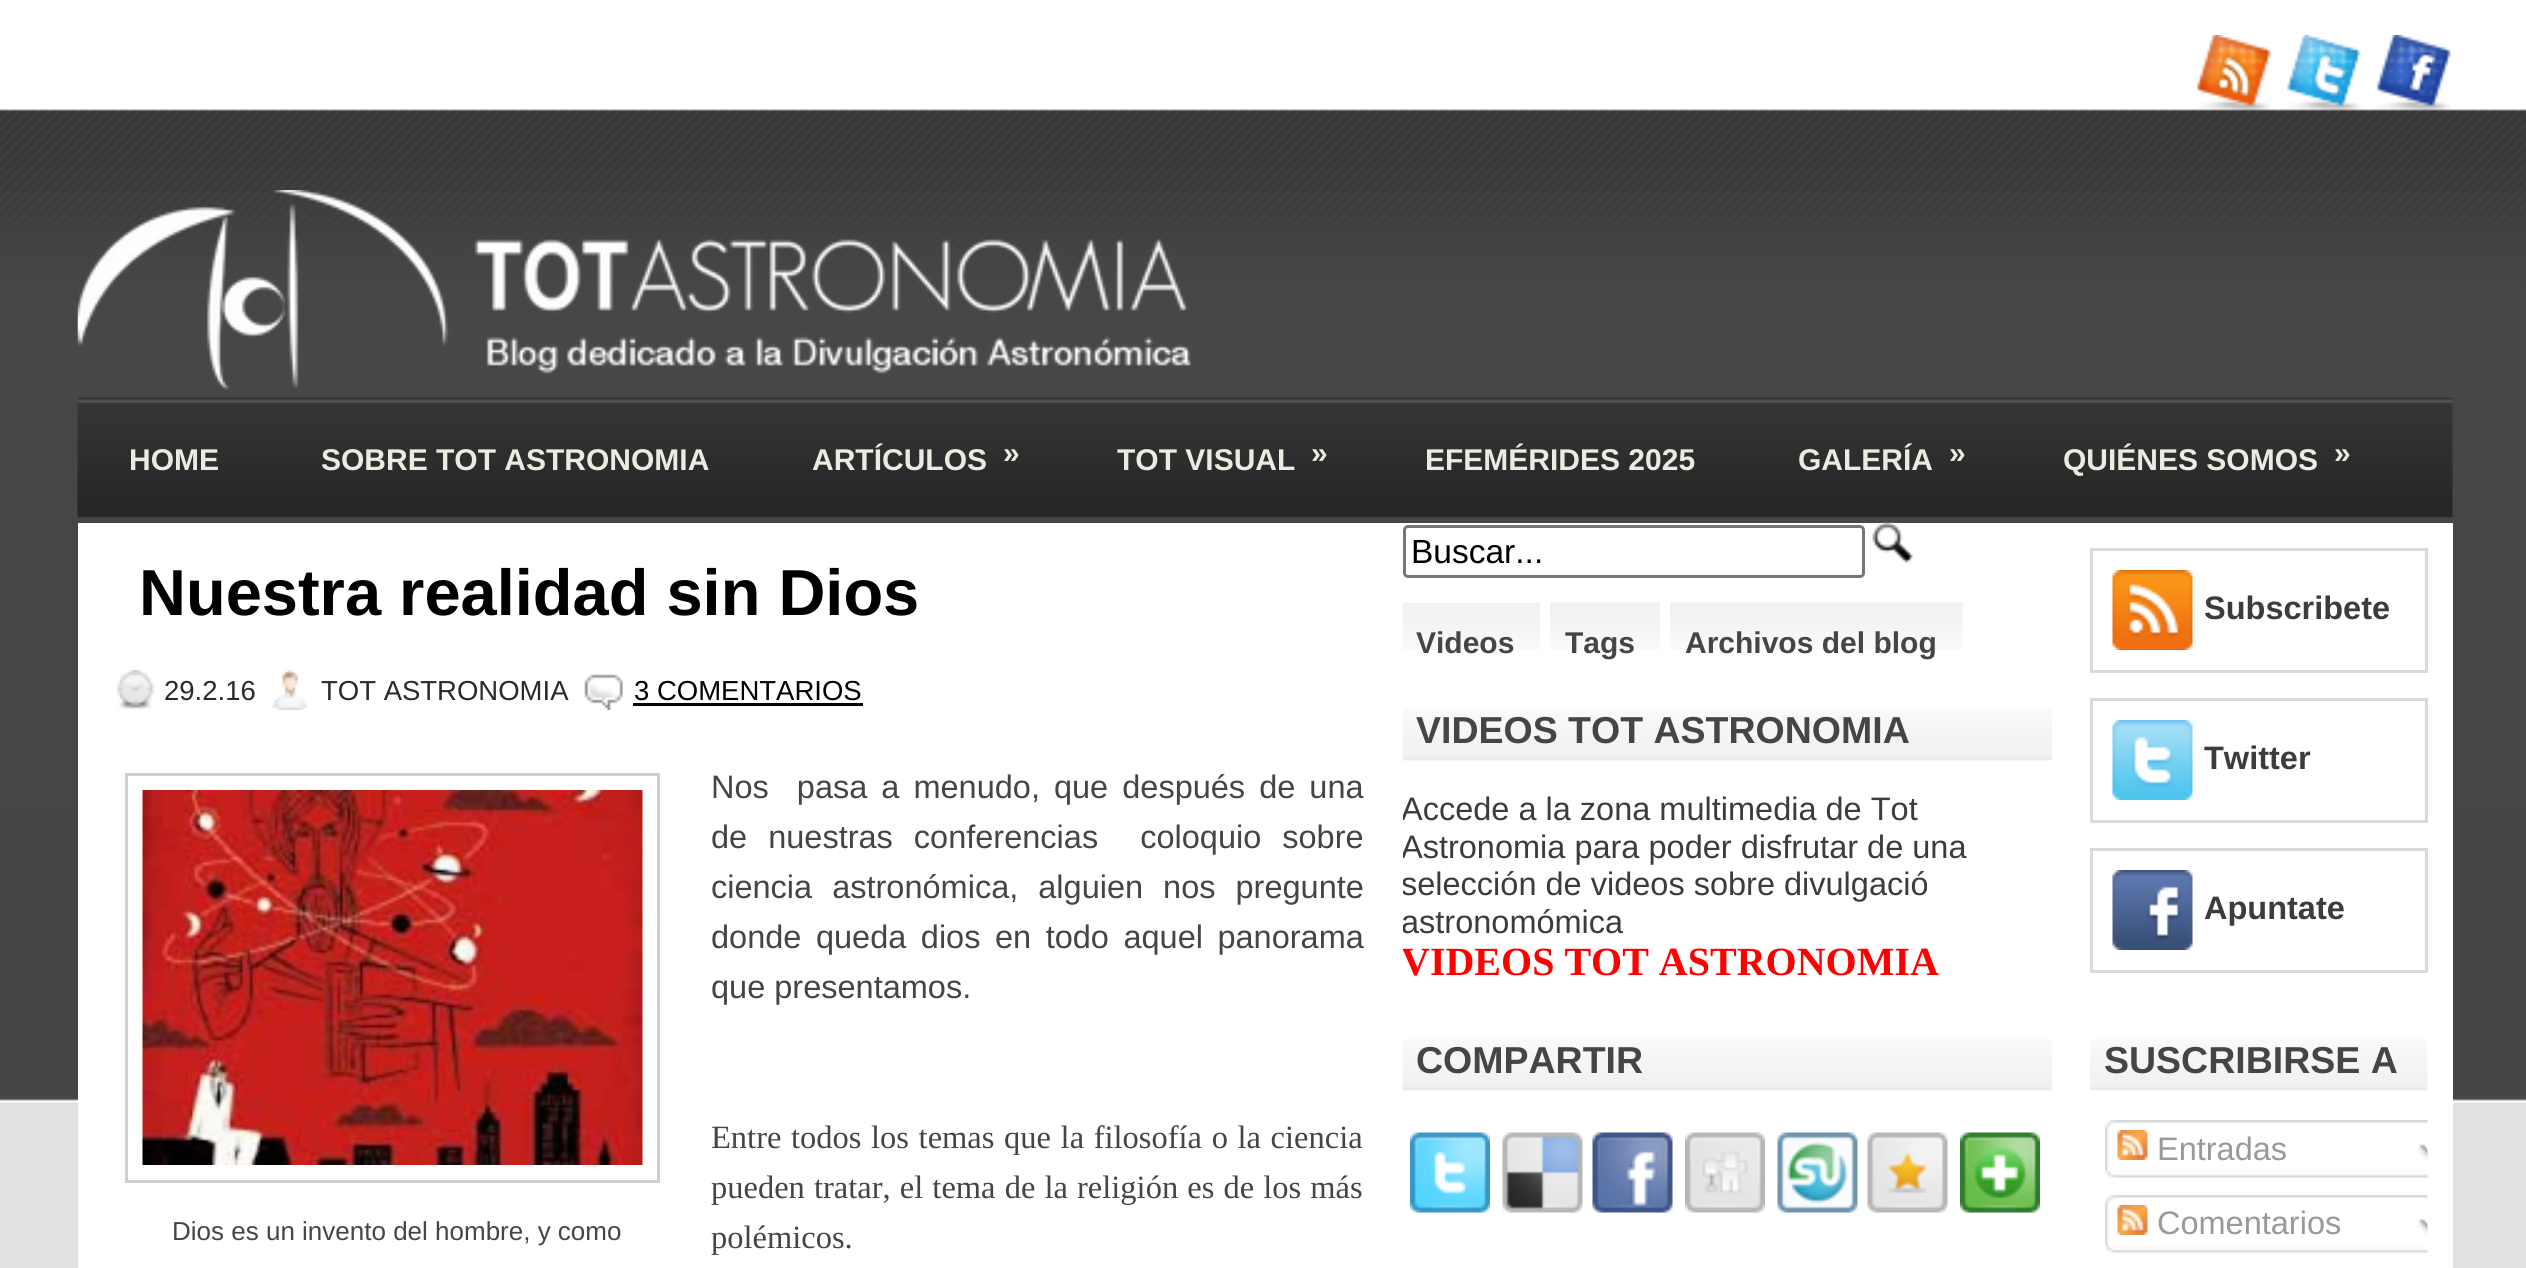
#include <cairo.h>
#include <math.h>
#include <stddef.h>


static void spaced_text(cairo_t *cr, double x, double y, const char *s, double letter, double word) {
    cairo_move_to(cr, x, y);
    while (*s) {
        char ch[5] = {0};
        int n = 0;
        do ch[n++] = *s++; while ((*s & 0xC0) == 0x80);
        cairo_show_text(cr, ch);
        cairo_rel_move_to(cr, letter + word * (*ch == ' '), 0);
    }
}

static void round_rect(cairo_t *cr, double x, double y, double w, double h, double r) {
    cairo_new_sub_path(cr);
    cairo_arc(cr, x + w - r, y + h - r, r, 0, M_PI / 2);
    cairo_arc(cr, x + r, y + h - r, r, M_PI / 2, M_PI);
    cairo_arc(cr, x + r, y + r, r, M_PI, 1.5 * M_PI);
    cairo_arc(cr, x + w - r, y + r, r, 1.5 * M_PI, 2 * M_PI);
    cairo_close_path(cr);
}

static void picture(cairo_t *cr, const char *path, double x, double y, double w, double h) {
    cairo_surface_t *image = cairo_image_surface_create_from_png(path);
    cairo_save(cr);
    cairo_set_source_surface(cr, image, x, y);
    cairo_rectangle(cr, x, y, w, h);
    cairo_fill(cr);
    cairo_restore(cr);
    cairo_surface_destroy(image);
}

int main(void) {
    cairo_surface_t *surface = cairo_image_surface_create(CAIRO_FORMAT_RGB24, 2526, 1268);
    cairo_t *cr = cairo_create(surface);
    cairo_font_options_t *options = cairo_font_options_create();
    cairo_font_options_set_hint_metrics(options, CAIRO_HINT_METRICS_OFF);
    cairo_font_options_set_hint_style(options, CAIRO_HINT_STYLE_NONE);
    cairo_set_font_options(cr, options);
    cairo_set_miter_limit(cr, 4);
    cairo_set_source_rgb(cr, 0.882, 0.882, 0.882);
    cairo_paint(cr);
    picture(cr, "img1.png", 0, 0, 2526, 1103);
    picture(cr, "img2.png", 2196, 35, 75, 76);
    picture(cr, "img3.png", 2286, 35, 75, 76);
    picture(cr, "img4.png", 2376, 35, 75, 76);
    picture(cr, "img5.png", 77, 190, 1115, 200);
    picture(cr, "img6.png", 77, 397, 2376, 121);
    cairo_select_font_face(cr, "Liberation Sans", CAIRO_FONT_SLANT_NORMAL, CAIRO_FONT_WEIGHT_BOLD);
    cairo_set_font_size(cr, 30);
    cairo_set_source_rgb(cr, 0.914, 0.929, 0.882);
    cairo_move_to(cr, 129, 470);
    cairo_show_text(cr, "HOME");
    cairo_move_to(cr, 321, 470);
    cairo_show_text(cr, "SOBRE TOT ASTRONOMIA");
    cairo_move_to(cr, 812, 470);
    cairo_show_text(cr, "ARTÍCULOS");
    cairo_move_to(cr, 1003, 463);
    cairo_show_text(cr, "»");
    cairo_move_to(cr, 1117, 470);
    cairo_show_text(cr, "TOT VISUAL");
    cairo_move_to(cr, 1311, 463);
    cairo_show_text(cr, "»");
    cairo_move_to(cr, 1425, 470);
    cairo_show_text(cr, "EFEMÉRIDES 2025");
    cairo_move_to(cr, 1798, 470);
    cairo_show_text(cr, "GALERÍA");
    cairo_move_to(cr, 1949, 463);
    cairo_show_text(cr, "»");
    cairo_move_to(cr, 2063, 470);
    cairo_show_text(cr, "QUIÉNES SOMOS");
    cairo_move_to(cr, 2334, 463);
    cairo_show_text(cr, "»");
    cairo_set_source_rgb(cr, 1, 1, 1);
    cairo_rectangle(cr, 78, 523, 2375, 745);
    cairo_fill(cr);
    cairo_set_font_size(cr, 65);
    cairo_set_source_rgb(cr, 0, 0, 0);
    cairo_move_to(cr, 139, 615);
    cairo_show_text(cr, "Nuestra realidad sin Dios");
    picture(cr, "img7.png", 116, 670, 39, 40);
    cairo_select_font_face(cr, "Liberation Sans", CAIRO_FONT_SLANT_NORMAL, CAIRO_FONT_WEIGHT_NORMAL);
    cairo_set_font_size(cr, 27.5);
    cairo_set_source_rgb(cr, 0.169, 0.165, 0.165);
    cairo_move_to(cr, 164, 700);
    cairo_show_text(cr, "29.2.16");
    picture(cr, "img8.png", 272, 670, 36, 40);
    cairo_move_to(cr, 321, 700);
    cairo_show_text(cr, "TOT ASTRONOMIA");
    picture(cr, "img9.png", 584, 674, 39, 36);
    cairo_set_source_rgb(cr, 0, 0, 0);
    cairo_move_to(cr, 634, 700);
    cairo_show_text(cr, "3 COMENTARIOS");
    cairo_rectangle(cr, 633, 703, 230, 3);
    cairo_fill(cr);
    cairo_set_font_size(cr, 32.5);
    cairo_set_source_rgb(cr, 0.275, 0.271, 0.271);
    spaced_text(cr, 711, 798, "Nos  pasa a menudo, que después de una", 0, 5);
    spaced_text(cr, 711, 848, "de nuestras conferencias  coloquio sobre", 0, 12);
    spaced_text(cr, 711, 898, "ciencia astronómica, alguien nos pregunte", 0, 11);
    spaced_text(cr, 711, 948, "donde queda dios en todo aquel panorama", 0, 5.5);
    cairo_move_to(cr, 711, 998);
    cairo_show_text(cr, "que presentamos.");
    cairo_rectangle(cr, 126.5, 774.5, 532, 407);
    cairo_set_source_rgb(cr, 0.816, 0.812, 0.812);
    cairo_set_line_width(cr, 3);
    cairo_stroke(cr);
    picture(cr, "img10.png", 142, 790, 501, 375);
    cairo_set_font_size(cr, 26);
    cairo_set_source_rgb(cr, 0.275, 0.271, 0.271);
    cairo_move_to(cr, 172, 1240);
    cairo_show_text(cr, "Dios es un invento del hombre, y como");
    cairo_select_font_face(cr, "Liberation Serif", CAIRO_FONT_SLANT_NORMAL, CAIRO_FONT_WEIGHT_NORMAL);
    cairo_set_font_size(cr, 32.5);
    spaced_text(cr, 711, 1148, "Entre todos los temas que la filosofía o la ciencia", 0, 1.5);
    spaced_text(cr, 711, 1198, "pueden tratar, el tema de la religión es de los más", 0, 1);
    cairo_move_to(cr, 711, 1248);
    cairo_show_text(cr, "polémicos.");
    round_rect(cr, 1404.5, 526.5, 459, 50, 3.5);
    cairo_set_source_rgb(cr, 0.463, 0.463, 0.463);
    cairo_stroke(cr);
    cairo_select_font_face(cr, "Liberation Sans", CAIRO_FONT_SLANT_NORMAL, CAIRO_FONT_WEIGHT_NORMAL);
    cairo_set_font_size(cr, 33.5);
    cairo_set_source_rgb(cr, 0, 0, 0);
    cairo_move_to(cr, 1411, 563);
    cairo_show_text(cr, "Buscar...");
    picture(cr, "img11.png", 1872, 522, 41, 41);
    picture(cr, "img12.png", 1402, 602, 138, 48);
    cairo_select_font_face(cr, "Liberation Sans", CAIRO_FONT_SLANT_NORMAL, CAIRO_FONT_WEIGHT_BOLD);
    cairo_set_font_size(cr, 30);
    cairo_set_source_rgb(cr, 0.275, 0.271, 0.271);
    cairo_move_to(cr, 1416, 653);
    cairo_show_text(cr, "Videos");
    picture(cr, "img13.png", 1550, 602, 110, 48);
    cairo_move_to(cr, 1565, 653);
    cairo_show_text(cr, "Tags");
    picture(cr, "img14.png", 1670, 602, 293, 48);
    cairo_move_to(cr, 1685, 653);
    cairo_show_text(cr, "Archivos del blog");
    picture(cr, "img15.png", 1402, 709, 651, 52);
    cairo_set_font_size(cr, 37.5);
    cairo_move_to(cr, 1416, 743);
    cairo_show_text(cr, "VIDEOS TOT ASTRONOMIA");
    cairo_save(cr);
    cairo_rectangle(cr, 1403, 523, 650, 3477);
    cairo_clip(cr);
    cairo_select_font_face(cr, "Liberation Sans", CAIRO_FONT_SLANT_NORMAL, CAIRO_FONT_WEIGHT_NORMAL);
    cairo_set_font_size(cr, 32.5);
    cairo_set_source_rgb(cr, 0.239, 0.235, 0.235);
    cairo_move_to(cr, 1401, 820);
    cairo_show_text(cr, "Accede a la zona multimedia de Tot");
    cairo_move_to(cr, 1401, 858);
    cairo_show_text(cr, "Astronomia para poder disfrutar de una");
    cairo_move_to(cr, 1401, 895);
    cairo_show_text(cr, "selección de videos sobre divulgació");
    cairo_move_to(cr, 1401, 933);
    cairo_show_text(cr, "astronomómica");
    cairo_select_font_face(cr, "Liberation Serif", CAIRO_FONT_SLANT_NORMAL, CAIRO_FONT_WEIGHT_BOLD);
    cairo_set_font_size(cr, 40);
    cairo_set_source_rgb(cr, 1, 0, 0);
    cairo_move_to(cr, 1401, 975);
    cairo_show_text(cr, "VIDEOS TOT ASTRONOMIA");
    cairo_restore(cr);
    picture(cr, "img15.png", 1402, 1039, 651, 52);
    cairo_move_to(cr, 1416, 1073);
    cairo_show_text(cr, "COMPARTIR");
    picture(cr, "img16.png", 1410, 1132, 80, 81);
    picture(cr, "img17.png", 1502, 1132, 81, 81);
    picture(cr, "img18.png", 1592, 1132, 81, 81);
    picture(cr, "img19.png", 1685, 1132, 80, 81);
    picture(cr, "img20.png", 1777, 1132, 81, 81);
    picture(cr, "img21.png", 1867, 1132, 81, 81);
    picture(cr, "img22.png", 1960, 1132, 80, 81);
    cairo_rectangle(cr, 2091.5, 549.5, 335, 122);
    cairo_set_source_rgb(cr, 0.859, 0.855, 0.855);
    cairo_stroke(cr);
    picture(cr, "img23.png", 2112, 570, 81, 80);
    cairo_set_font_size(cr, 32.5);
    cairo_set_source_rgb(cr, 0.239, 0.235, 0.235);
    cairo_move_to(cr, 2204, 619);
    cairo_show_text(cr, "Subscribete");
    cairo_rectangle(cr, 2091.5, 699.5, 335, 122);
    cairo_set_source_rgb(cr, 0.859, 0.855, 0.855);
    cairo_stroke(cr);
    picture(cr, "img24.png", 2112, 720, 81, 80);
    cairo_set_source_rgb(cr, 0.239, 0.235, 0.235);
    cairo_move_to(cr, 2204, 769);
    cairo_show_text(cr, "Twitter");
    cairo_rectangle(cr, 2091.5, 849.5, 335, 122);
    cairo_set_source_rgb(cr, 0.859, 0.855, 0.855);
    cairo_stroke(cr);
    picture(cr, "img25.png", 2112, 870, 81, 80);
    cairo_set_source_rgb(cr, 0.239, 0.235, 0.235);
    cairo_move_to(cr, 2204, 919);
    cairo_show_text(cr, "Apuntate");
    picture(cr, "img26.png", 2090, 1039, 338, 52);
    cairo_set_font_size(cr, 37.5);
    cairo_set_source_rgb(cr, 0.275, 0.271, 0.271);
    cairo_move_to(cr, 2104, 1073);
    cairo_show_text(cr, "SUSCRIBIRSE A");
    picture(cr, "img27.png", 2105, 1120, 323, 50);
    picture(cr, "img28.png", 2117, 1130, 31, 30);
    cairo_select_font_face(cr, "Liberation Sans", CAIRO_FONT_SLANT_NORMAL, CAIRO_FONT_WEIGHT_NORMAL);
    cairo_set_font_size(cr, 32.5);
    cairo_set_source_rgb(cr, 0.6, 0.6, 0.6);
    cairo_move_to(cr, 2157, 1160);
    cairo_show_text(cr, "Entradas");
    picture(cr, "img29.png", 2417, 1143, 11, 17);
    picture(cr, "img30.png", 2105, 1170, 323, 8);
    picture(cr, "img27.png", 2105, 1195, 323, 50);
    picture(cr, "img28.png", 2117, 1205, 31, 30);
    cairo_move_to(cr, 2157, 1234);
    cairo_show_text(cr, "Comentarios");
    picture(cr, "img29.png", 2417, 1218, 11, 17);
    picture(cr, "img30.png", 2105, 1245, 323, 8);
    cairo_surface_write_to_png(surface, "page.png");
    cairo_font_options_destroy(options);
    cairo_destroy(cr);
    cairo_surface_destroy(surface);
    return 0;
}
